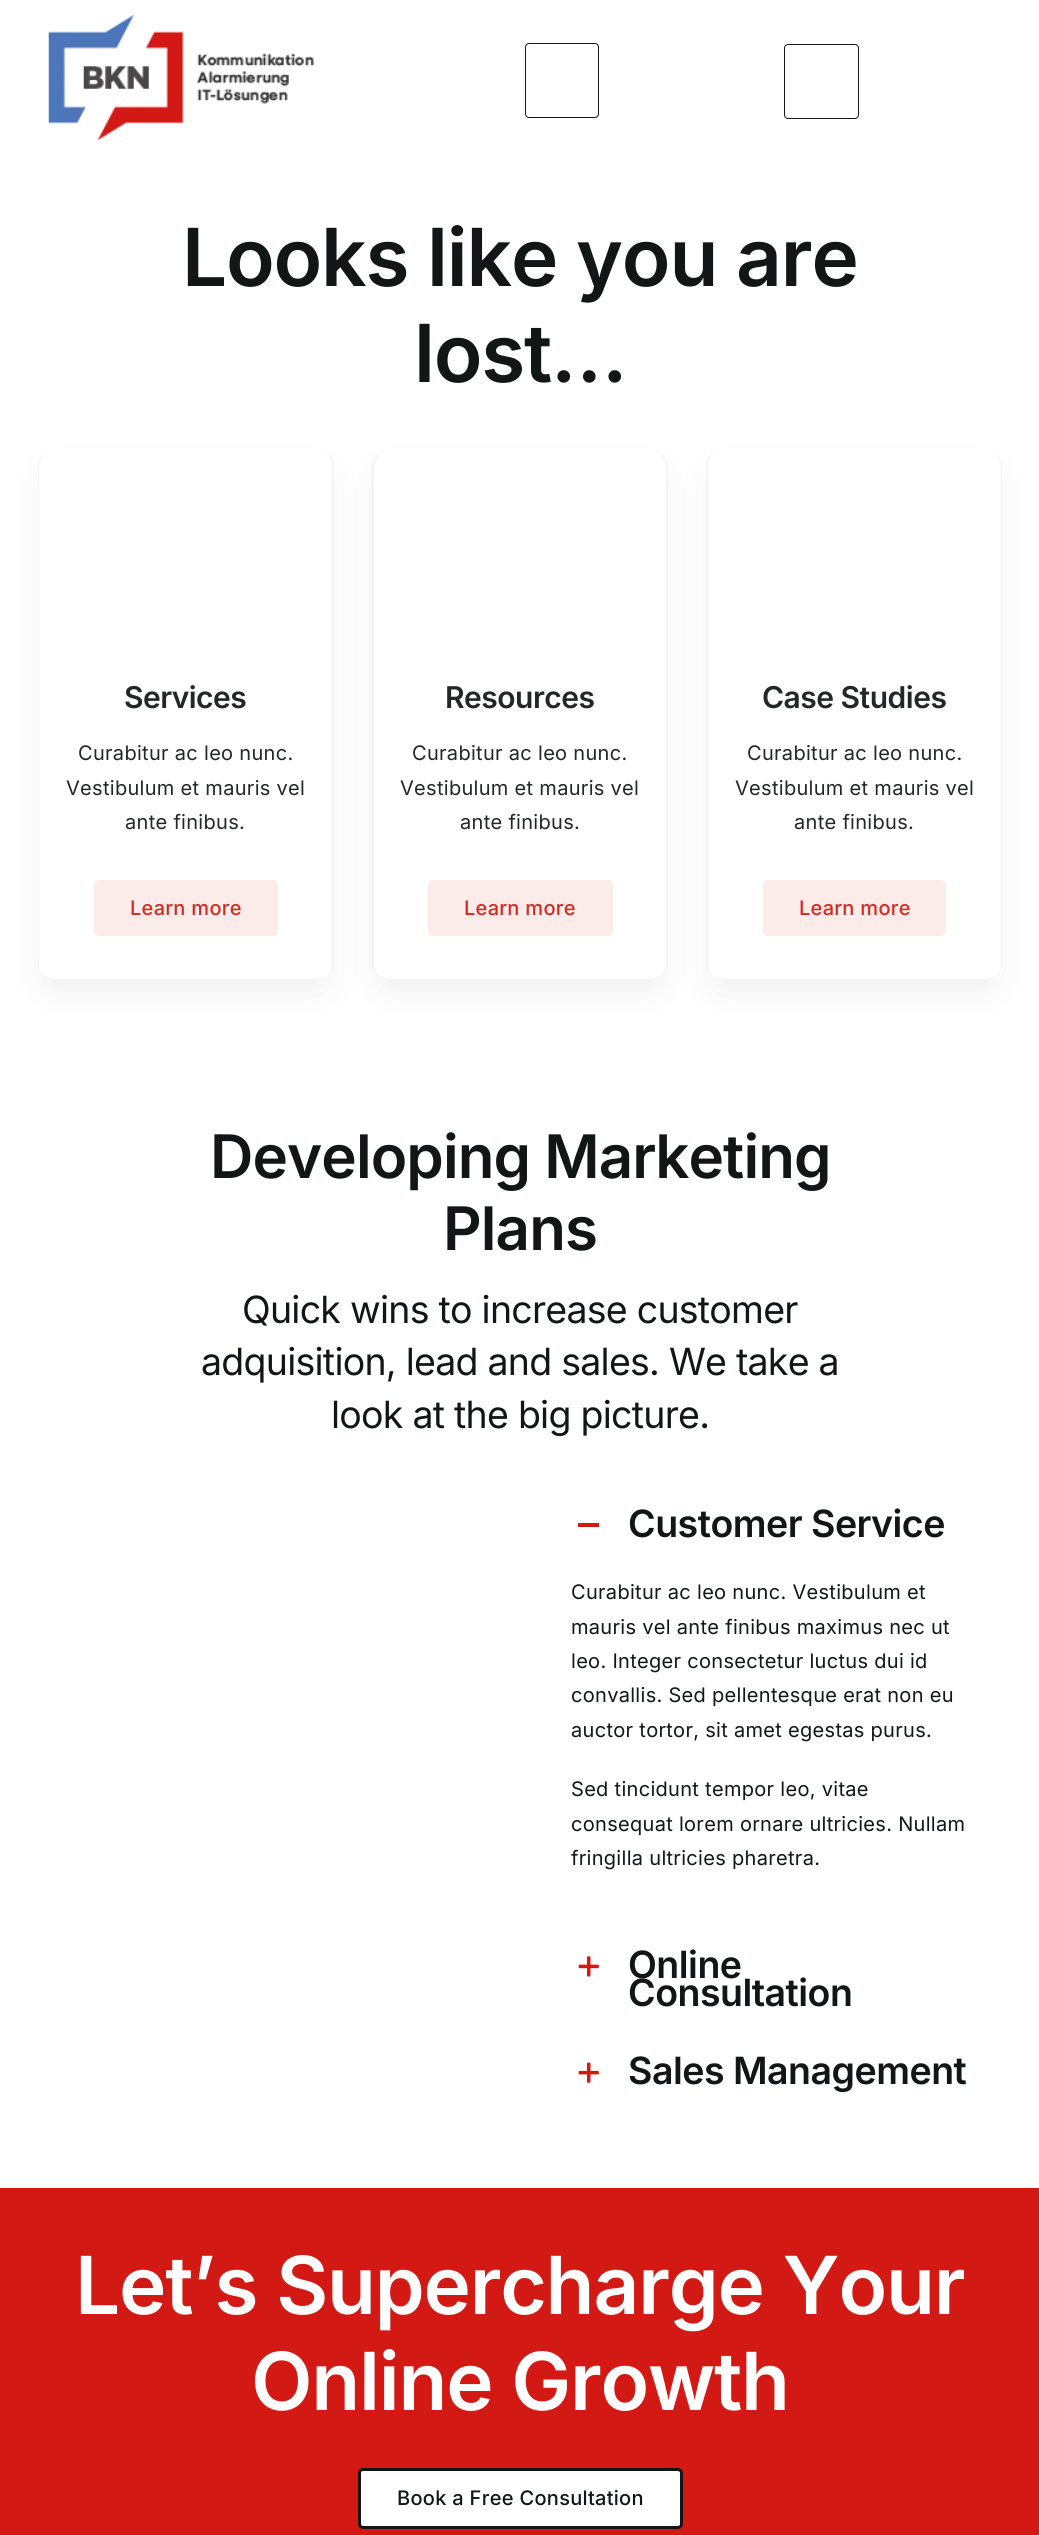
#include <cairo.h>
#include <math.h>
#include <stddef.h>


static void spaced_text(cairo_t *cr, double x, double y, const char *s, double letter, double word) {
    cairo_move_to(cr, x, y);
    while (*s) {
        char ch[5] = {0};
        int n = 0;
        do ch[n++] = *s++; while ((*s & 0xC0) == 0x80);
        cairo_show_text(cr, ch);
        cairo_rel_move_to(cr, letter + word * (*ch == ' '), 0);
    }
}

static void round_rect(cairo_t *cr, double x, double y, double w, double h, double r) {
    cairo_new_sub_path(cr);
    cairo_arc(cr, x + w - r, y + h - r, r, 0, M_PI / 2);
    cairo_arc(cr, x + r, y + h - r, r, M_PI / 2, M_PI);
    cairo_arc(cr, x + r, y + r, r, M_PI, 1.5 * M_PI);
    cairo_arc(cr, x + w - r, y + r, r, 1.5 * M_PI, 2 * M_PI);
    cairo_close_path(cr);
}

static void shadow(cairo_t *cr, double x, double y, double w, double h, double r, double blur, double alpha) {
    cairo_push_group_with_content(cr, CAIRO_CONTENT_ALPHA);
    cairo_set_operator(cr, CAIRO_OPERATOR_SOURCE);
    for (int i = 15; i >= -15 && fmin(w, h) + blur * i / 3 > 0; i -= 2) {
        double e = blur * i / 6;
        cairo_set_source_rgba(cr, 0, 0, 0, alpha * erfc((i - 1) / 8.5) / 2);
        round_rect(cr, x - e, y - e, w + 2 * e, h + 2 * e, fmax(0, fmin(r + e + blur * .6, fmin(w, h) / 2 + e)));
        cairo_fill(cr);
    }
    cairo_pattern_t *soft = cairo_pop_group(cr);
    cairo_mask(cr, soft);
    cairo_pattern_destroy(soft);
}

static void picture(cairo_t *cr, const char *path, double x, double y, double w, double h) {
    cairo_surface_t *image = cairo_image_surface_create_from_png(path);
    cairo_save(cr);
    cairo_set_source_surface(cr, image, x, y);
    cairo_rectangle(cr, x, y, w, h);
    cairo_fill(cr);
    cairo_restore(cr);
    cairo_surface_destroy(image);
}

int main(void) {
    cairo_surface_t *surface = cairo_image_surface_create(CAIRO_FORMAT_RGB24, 1039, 2535);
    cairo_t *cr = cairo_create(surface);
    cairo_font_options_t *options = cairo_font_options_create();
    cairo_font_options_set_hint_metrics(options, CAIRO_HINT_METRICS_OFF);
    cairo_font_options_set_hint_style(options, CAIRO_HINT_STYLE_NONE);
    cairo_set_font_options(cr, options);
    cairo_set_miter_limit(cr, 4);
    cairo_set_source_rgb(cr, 1, 1, 1);
    cairo_paint(cr);
    picture(cr, "img1.png", 48, 15, 266, 125);
    round_rect(cr, 525.5, 43.5, 73, 74, 3.5);
    cairo_set_source_rgb(cr, 0.078, 0.086, 0.09);
    cairo_set_line_width(cr, 1);
    cairo_stroke(cr);
    round_rect(cr, 784.5, 44.5, 74, 74, 3.5);
    cairo_stroke(cr);
    cairo_select_font_face(cr, "Inter SemiBold", CAIRO_FONT_SLANT_NORMAL, CAIRO_FONT_WEIGHT_NORMAL);
    cairo_set_font_size(cr, 80);
    spaced_text(cr, 182, 286, "Looks like you are", -1.2, 0);
    spaced_text(cr, 414, 382, "lost…", -1.2, 0);
    cairo_save(cr);
    cairo_set_fill_rule(cr, CAIRO_FILL_RULE_EVEN_ODD);
    cairo_new_path(cr);
    cairo_move_to(cr, 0, 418);
    cairo_line_to(cr, 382, 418);
    cairo_line_to(cr, 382, 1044);
    cairo_line_to(cr, 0, 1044);
    cairo_close_path(cr);
    cairo_move_to(cr, 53, 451);
    cairo_line_to(cr, 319, 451);
    cairo_curve_to(cr, 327.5, 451, 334, 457.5, 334, 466);
    cairo_line_to(cr, 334, 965);
    cairo_curve_to(cr, 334, 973.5, 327.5, 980, 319, 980);
    cairo_line_to(cr, 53, 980);
    cairo_curve_to(cr, 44.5, 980, 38, 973.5, 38, 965);
    cairo_line_to(cr, 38, 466);
    cairo_curve_to(cr, 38, 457.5, 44.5, 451, 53, 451);
    cairo_close_path(cr);
    cairo_clip(cr);
    cairo_set_source_rgb(cr, 0.075, 0.082, 0.086);
    shadow(cr, 50, 479, 271, 504, 2.5, 20, 0.09);
    cairo_restore(cr);
    cairo_set_source_rgba(cr, 0.075, 0.082, 0.086, 0.05);
    cairo_set_fill_rule(cr, CAIRO_FILL_RULE_EVEN_ODD);
    cairo_new_path(cr);
    cairo_move_to(cr, 52, 451);
    cairo_line_to(cr, 319, 451);
    cairo_curve_to(cr, 327, 451, 334, 458, 334, 466);
    cairo_line_to(cr, 334, 965);
    cairo_curve_to(cr, 334, 973, 327, 980, 319, 980);
    cairo_line_to(cr, 52, 980);
    cairo_curve_to(cr, 44, 980, 38, 973, 38, 965);
    cairo_line_to(cr, 38, 466);
    cairo_curve_to(cr, 38, 458, 44, 451, 52, 451);
    cairo_close_path(cr);
    cairo_move_to(cr, 52, 451);
    cairo_line_to(cr, 319, 451);
    cairo_curve_to(cr, 326, 451, 332, 458, 332, 466);
    cairo_line_to(cr, 332, 965);
    cairo_curve_to(cr, 332, 973, 326, 979, 319, 979);
    cairo_line_to(cr, 52, 979);
    cairo_curve_to(cr, 45, 979, 39, 973, 39, 965);
    cairo_line_to(cr, 39, 466);
    cairo_curve_to(cr, 39, 458, 45, 451, 52, 451);
    cairo_close_path(cr);
    cairo_fill(cr);
    cairo_set_font_size(cr, 30);
    cairo_set_source_rgb(cr, 0.141, 0.149, 0.153);
    spaced_text(cr, 124, 708, "Services", -0.5, 0);
    cairo_select_font_face(cr, "Inter", CAIRO_FONT_SLANT_NORMAL, CAIRO_FONT_WEIGHT_NORMAL);
    cairo_set_font_size(cr, 20);
    spaced_text(cr, 78, 760, "Curabitur ac leo nunc.", 0.3, 0);
    spaced_text(cr, 66, 795, "Vestibulum et mauris vel", 0.3, 0);
    spaced_text(cr, 125, 829, "ante finibus.", 0.3, 0);
    cairo_set_source_rgb(cr, 0.984, 0.918, 0.914);
    round_rect(cr, 94, 880, 184, 56, 5);
    cairo_fill(cr);
    cairo_select_font_face(cr, "Inter Medium", CAIRO_FONT_SLANT_NORMAL, CAIRO_FONT_WEIGHT_NORMAL);
    cairo_set_source_rgb(cr, 0.839, 0.157, 0.137);
    spaced_text(cr, 130, 915, "Learn more", 0.3, 0);
    cairo_save(cr);
    cairo_new_path(cr);
    cairo_move_to(cr, 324, 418);
    cairo_line_to(cr, 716, 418);
    cairo_line_to(cr, 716, 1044);
    cairo_line_to(cr, 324, 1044);
    cairo_close_path(cr);
    cairo_move_to(cr, 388, 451);
    cairo_line_to(cr, 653, 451);
    cairo_curve_to(cr, 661.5, 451, 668, 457.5, 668, 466);
    cairo_line_to(cr, 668, 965);
    cairo_curve_to(cr, 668, 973.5, 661.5, 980, 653, 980);
    cairo_line_to(cr, 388, 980);
    cairo_curve_to(cr, 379.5, 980, 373, 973.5, 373, 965);
    cairo_line_to(cr, 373, 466);
    cairo_curve_to(cr, 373, 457.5, 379.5, 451, 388, 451);
    cairo_close_path(cr);
    cairo_clip(cr);
    cairo_set_source_rgb(cr, 0.075, 0.082, 0.086);
    shadow(cr, 385, 479, 270, 504, 2.5, 20, 0.09);
    cairo_restore(cr);
    cairo_set_source_rgba(cr, 1, 1, 1, 0.93);
    round_rect(cr, 373, 451, 295, 529, 15);
    cairo_fill(cr);
    cairo_set_source_rgba(cr, 0.075, 0.082, 0.086, 0.05);
    cairo_new_path(cr);
    cairo_move_to(cr, 388, 451);
    cairo_line_to(cr, 652, 451);
    cairo_curve_to(cr, 661, 451, 668, 458, 668, 466);
    cairo_line_to(cr, 668, 965);
    cairo_curve_to(cr, 668, 973, 661, 980, 652, 980);
    cairo_line_to(cr, 388, 980);
    cairo_curve_to(cr, 379, 980, 372, 973, 372, 965);
    cairo_line_to(cr, 372, 466);
    cairo_curve_to(cr, 372, 458, 379, 451, 388, 451);
    cairo_close_path(cr);
    cairo_move_to(cr, 388, 451);
    cairo_line_to(cr, 652, 451);
    cairo_curve_to(cr, 660, 451, 666, 458, 666, 466);
    cairo_line_to(cr, 666, 965);
    cairo_curve_to(cr, 666, 973, 660, 979, 652, 979);
    cairo_line_to(cr, 388, 979);
    cairo_curve_to(cr, 380, 979, 374, 973, 374, 965);
    cairo_line_to(cr, 374, 466);
    cairo_curve_to(cr, 374, 458, 380, 451, 388, 451);
    cairo_close_path(cr);
    cairo_fill(cr);
    cairo_select_font_face(cr, "Inter SemiBold", CAIRO_FONT_SLANT_NORMAL, CAIRO_FONT_WEIGHT_NORMAL);
    cairo_set_font_size(cr, 30);
    cairo_set_source_rgb(cr, 0.141, 0.149, 0.153);
    spaced_text(cr, 445, 708, "Resources", -0.5, 0);
    cairo_select_font_face(cr, "Inter", CAIRO_FONT_SLANT_NORMAL, CAIRO_FONT_WEIGHT_NORMAL);
    cairo_set_font_size(cr, 20);
    spaced_text(cr, 412, 760, "Curabitur ac leo nunc.", 0.3, 0);
    spaced_text(cr, 400, 795, "Vestibulum et mauris vel", 0.3, 0);
    spaced_text(cr, 460, 829, "ante finibus.", 0.3, 0);
    cairo_set_source_rgb(cr, 0.984, 0.918, 0.914);
    round_rect(cr, 428, 880, 185, 56, 5);
    cairo_fill(cr);
    cairo_select_font_face(cr, "Inter Medium", CAIRO_FONT_SLANT_NORMAL, CAIRO_FONT_WEIGHT_NORMAL);
    cairo_set_source_rgb(cr, 0.839, 0.157, 0.137);
    spaced_text(cr, 464, 915, "Learn more", 0.3, 0);
    cairo_save(cr);
    cairo_new_path(cr);
    cairo_move_to(cr, 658, 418);
    cairo_line_to(cr, 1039, 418);
    cairo_line_to(cr, 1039, 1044);
    cairo_line_to(cr, 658, 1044);
    cairo_close_path(cr);
    cairo_move_to(cr, 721, 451);
    cairo_line_to(cr, 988, 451);
    cairo_curve_to(cr, 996.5, 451, 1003, 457.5, 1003, 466);
    cairo_line_to(cr, 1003, 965);
    cairo_curve_to(cr, 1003, 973.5, 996.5, 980, 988, 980);
    cairo_line_to(cr, 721, 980);
    cairo_curve_to(cr, 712.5, 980, 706, 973.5, 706, 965);
    cairo_line_to(cr, 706, 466);
    cairo_curve_to(cr, 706, 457.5, 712.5, 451, 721, 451);
    cairo_close_path(cr);
    cairo_clip(cr);
    cairo_set_source_rgb(cr, 0.075, 0.082, 0.086);
    shadow(cr, 719, 479, 271, 504, 2.5, 20, 0.09);
    cairo_restore(cr);
    cairo_set_source_rgba(cr, 1, 1, 1, 0.93);
    round_rect(cr, 706, 451, 297, 529, 15);
    cairo_fill(cr);
    cairo_set_source_rgb(cr, 0.957, 0.957, 0.957);
    cairo_new_path(cr);
    cairo_move_to(cr, 721, 451);
    cairo_line_to(cr, 988, 451);
    cairo_curve_to(cr, 996, 451, 1002, 458, 1002, 466);
    cairo_line_to(cr, 1002, 965);
    cairo_curve_to(cr, 1002, 973, 996, 980, 988, 980);
    cairo_line_to(cr, 721, 980);
    cairo_curve_to(cr, 713, 980, 706, 973, 706, 965);
    cairo_line_to(cr, 706, 466);
    cairo_curve_to(cr, 706, 458, 713, 451, 721, 451);
    cairo_close_path(cr);
    cairo_move_to(cr, 721, 451);
    cairo_line_to(cr, 988, 451);
    cairo_curve_to(cr, 995, 451, 1001, 458, 1001, 466);
    cairo_line_to(cr, 1001, 965);
    cairo_curve_to(cr, 1001, 973, 995, 979, 988, 979);
    cairo_line_to(cr, 721, 979);
    cairo_curve_to(cr, 714, 979, 708, 973, 708, 965);
    cairo_line_to(cr, 708, 466);
    cairo_curve_to(cr, 708, 458, 714, 451, 721, 451);
    cairo_close_path(cr);
    cairo_fill(cr);
    cairo_select_font_face(cr, "Inter SemiBold", CAIRO_FONT_SLANT_NORMAL, CAIRO_FONT_WEIGHT_NORMAL);
    cairo_set_font_size(cr, 30);
    cairo_set_source_rgb(cr, 0.141, 0.149, 0.153);
    spaced_text(cr, 762, 708, "Case Studies", -0.5, 0);
    cairo_select_font_face(cr, "Inter", CAIRO_FONT_SLANT_NORMAL, CAIRO_FONT_WEIGHT_NORMAL);
    cairo_set_font_size(cr, 20);
    spaced_text(cr, 747, 760, "Curabitur ac leo nunc.", 0.3, 0);
    spaced_text(cr, 735, 795, "Vestibulum et mauris vel", 0.3, 0);
    spaced_text(cr, 794, 829, "ante finibus.", 0.3, 0);
    cairo_set_source_rgb(cr, 0.984, 0.918, 0.914);
    round_rect(cr, 763, 880, 183, 56, 5);
    cairo_fill(cr);
    cairo_select_font_face(cr, "Inter Medium", CAIRO_FONT_SLANT_NORMAL, CAIRO_FONT_WEIGHT_NORMAL);
    cairo_set_source_rgb(cr, 0.839, 0.157, 0.137);
    spaced_text(cr, 799, 915, "Learn more", 0.3, 0);
    cairo_select_font_face(cr, "Inter SemiBold", CAIRO_FONT_SLANT_NORMAL, CAIRO_FONT_WEIGHT_NORMAL);
    cairo_set_font_size(cr, 60);
    cairo_set_source_rgb(cr, 0.078, 0.086, 0.09);
    spaced_text(cr, 210, 1178, "Developing Marketing", -0.9, 0);
    spaced_text(cr, 443, 1250, "Plans", -0.9, 0);
    cairo_select_font_face(cr, "Inter", CAIRO_FONT_SLANT_NORMAL, CAIRO_FONT_WEIGHT_NORMAL);
    cairo_set_font_size(cr, 37.5);
    spaced_text(cr, 242, 1323, "Quick wins to increase customer", -0.75, 0);
    spaced_text(cr, 201, 1375, "adquisition, lead and sales. We take a", -0.75, 0);
    spaced_text(cr, 331, 1428, "look at the big picture.", -0.75, 0);
    cairo_set_source_rgb(cr, 0.827, 0.098, 0.078);
    cairo_rectangle(cr, 578, 1523, 21, 4);
    cairo_fill(cr);
    cairo_select_font_face(cr, "Inter SemiBold", CAIRO_FONT_SLANT_NORMAL, CAIRO_FONT_WEIGHT_NORMAL);
    cairo_set_source_rgb(cr, 0.078, 0.086, 0.09);
    spaced_text(cr, 628, 1537, "Customer Service", -0.5, 0);
    cairo_select_font_face(cr, "Inter", CAIRO_FONT_SLANT_NORMAL, CAIRO_FONT_WEIGHT_NORMAL);
    cairo_set_font_size(cr, 20);
    spaced_text(cr, 571, 1599, "Curabitur ac leo nunc. Vestibulum et", 0.3, 0);
    spaced_text(cr, 571, 1634, "mauris vel ante finibus maximus nec ut", 0.3, 0);
    spaced_text(cr, 571, 1668, "leo. Integer consectetur luctus dui id", 0.3, 0);
    spaced_text(cr, 571, 1702, "convallis. Sed pellentesque erat non eu", 0.3, 0);
    spaced_text(cr, 571, 1737, "auctor tortor, sit amet egestas purus.", 0.3, 0);
    spaced_text(cr, 571, 1796, "Sed tincidunt tempor leo, vitae", 0.3, 0);
    spaced_text(cr, 571, 1831, "consequat lorem ornare ultricies. Nullam", 0.3, 0);
    spaced_text(cr, 571, 1865, "fringilla ultricies pharetra.", 0.3, 0);
    picture(cr, "img2.png", 578, 1956, 21, 21);
    cairo_select_font_face(cr, "Inter SemiBold", CAIRO_FONT_SLANT_NORMAL, CAIRO_FONT_WEIGHT_NORMAL);
    cairo_set_font_size(cr, 37.5);
    spaced_text(cr, 628, 1978, "Online", -0.5, 0);
    spaced_text(cr, 628, 2006, "Consultation", -0.5, 0);
    picture(cr, "img3.png", 578, 2062, 21, 21);
    spaced_text(cr, 628, 2084, "Sales Management", -0.5, 0);
    cairo_set_source_rgb(cr, 0.827, 0.098, 0.078);
    cairo_rectangle(cr, 0, 2188, 1039, 347);
    cairo_fill(cr);
    cairo_set_font_size(cr, 80);
    cairo_set_source_rgb(cr, 1, 1, 1);
    spaced_text(cr, 75, 2314, "Let’s Supercharge Your", -1.2, 0);
    spaced_text(cr, 251, 2410, "Online Growth", -1.2, 0);
    round_rect(cr, 359.5, 2469.5, 322, 58, 3.5);
    cairo_fill_preserve(cr);
    cairo_set_source_rgb(cr, 0.078, 0.086, 0.09);
    cairo_set_line_width(cr, 3);
    cairo_stroke(cr);
    cairo_select_font_face(cr, "Inter Medium", CAIRO_FONT_SLANT_NORMAL, CAIRO_FONT_WEIGHT_NORMAL);
    cairo_set_font_size(cr, 20);
    spaced_text(cr, 397, 2505, "Book a Free Consultation", 0.3, 0);
    cairo_surface_write_to_png(surface, "page.png");
    cairo_font_options_destroy(options);
    cairo_destroy(cr);
    cairo_surface_destroy(surface);
    return 0;
}
